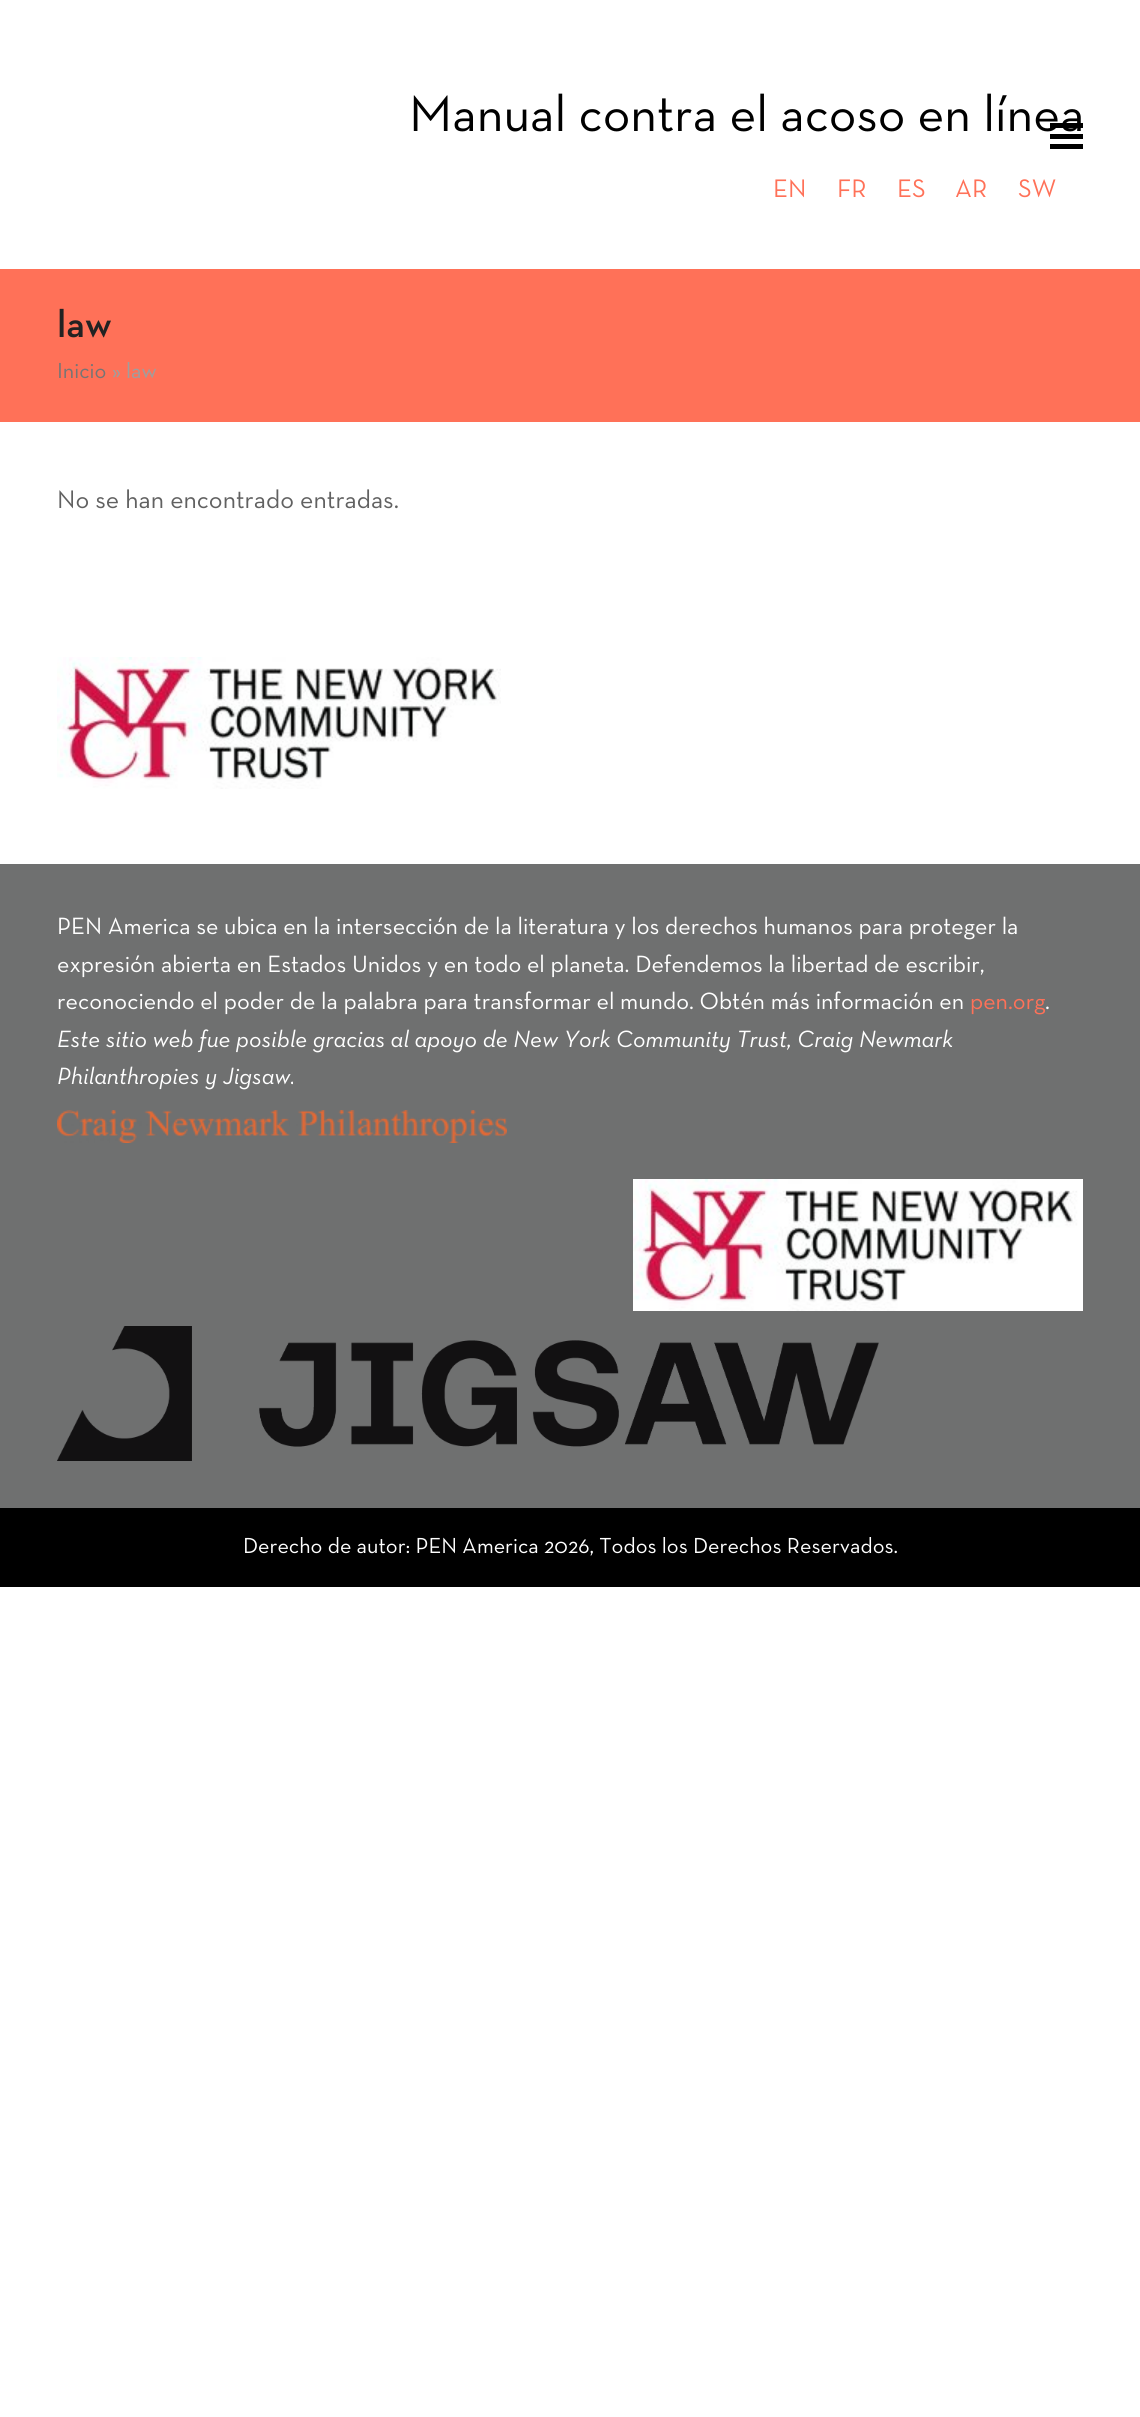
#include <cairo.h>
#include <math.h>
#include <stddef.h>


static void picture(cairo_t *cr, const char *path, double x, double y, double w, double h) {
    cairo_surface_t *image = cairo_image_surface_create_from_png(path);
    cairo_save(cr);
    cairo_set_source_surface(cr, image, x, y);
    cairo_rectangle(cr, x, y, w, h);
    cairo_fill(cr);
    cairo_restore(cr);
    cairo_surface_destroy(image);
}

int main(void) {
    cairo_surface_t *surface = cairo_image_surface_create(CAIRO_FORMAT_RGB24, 1140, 2417);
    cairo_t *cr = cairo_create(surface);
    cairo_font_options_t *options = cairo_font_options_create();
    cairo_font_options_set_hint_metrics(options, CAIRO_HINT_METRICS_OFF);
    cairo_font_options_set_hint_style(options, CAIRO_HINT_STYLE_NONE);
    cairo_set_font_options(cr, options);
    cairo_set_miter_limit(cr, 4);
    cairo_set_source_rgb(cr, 1, 1, 1);
    cairo_paint(cr);
    cairo_select_font_face(cr, "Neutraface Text", CAIRO_FONT_SLANT_NORMAL, CAIRO_FONT_WEIGHT_NORMAL);
    cairo_set_font_size(cr, 51.75);
    cairo_set_source_rgb(cr, 0, 0, 0);
    cairo_move_to(cr, 409, 131);
    cairo_show_text(cr, "Manual contra el acoso en línea");
    cairo_set_font_size(cr, 25.8);
    cairo_set_source_rgb(cr, 1, 0.443, 0.345);
    cairo_move_to(cr, 773, 197);
    cairo_show_text(cr, "EN");
    cairo_move_to(cr, 837, 197);
    cairo_show_text(cr, "FR");
    cairo_move_to(cr, 897, 197);
    cairo_show_text(cr, "ES");
    cairo_move_to(cr, 955, 197);
    cairo_show_text(cr, "AR");
    cairo_move_to(cr, 1018, 197);
    cairo_show_text(cr, "SW");
    cairo_set_source_rgb(cr, 0, 0, 0);
    cairo_rectangle(cr, 1050, 134, 33, 5);
    cairo_fill(cr);
    cairo_rectangle(cr, 1050, 123, 33, 5);
    cairo_fill(cr);
    cairo_rectangle(cr, 1050, 144, 33, 5);
    cairo_fill(cr);
    cairo_set_source_rgb(cr, 1, 0.443, 0.345);
    cairo_rectangle(cr, 0, 269, 1140, 153);
    cairo_fill(cr);
    cairo_select_font_face(cr, "Neutraface Text SemiBold", CAIRO_FONT_SLANT_NORMAL, CAIRO_FONT_WEIGHT_NORMAL);
    cairo_set_font_size(cr, 39);
    cairo_set_source_rgb(cr, 0.133, 0.133, 0.133);
    cairo_move_to(cr, 57, 337);
    cairo_show_text(cr, "law");
    cairo_select_font_face(cr, "Neutraface Text", CAIRO_FONT_SLANT_NORMAL, CAIRO_FONT_WEIGHT_NORMAL);
    cairo_set_font_size(cr, 22.15);
    cairo_set_source_rgb(cr, 0.459, 0.459, 0.459);
    cairo_move_to(cr, 57, 378);
    cairo_show_text(cr, "Inicio");
    cairo_set_source_rgb(cr, 0.62, 0.62, 0.62);
    cairo_move_to(cr, 112, 378);
    cairo_show_text(cr, "» law");
    cairo_set_font_size(cr, 25.8);
    cairo_set_source_rgb(cr, 0.38, 0.38, 0.38);
    cairo_move_to(cr, 57, 508);
    cairo_show_text(cr, "No se han encontrado entradas.");
    picture(cr, "img1.png", 57, 657, 444, 132);
    cairo_set_source_rgb(cr, 0.435, 0.439, 0.439);
    cairo_rectangle(cr, 0, 864, 1140, 644);
    cairo_fill(cr);
    cairo_set_font_size(cr, 24);
    cairo_set_source_rgb(cr, 1, 1, 1);
    cairo_move_to(cr, 57, 934);
    cairo_show_text(cr, "PEN America se ubica en la intersección de la literatura y los derechos humanos para proteger la");
    cairo_move_to(cr, 57, 972);
    cairo_show_text(cr, "expresión abierta en Estados Unidos y en todo el planeta. Defendemos la libertad de escribir,");
    cairo_move_to(cr, 57, 1009);
    cairo_show_text(cr, "reconociendo el poder de la palabra para transformar el mundo. Obtén más información en");
    cairo_set_source_rgb(cr, 1, 0.443, 0.345);
    cairo_move_to(cr, 970, 1009);
    cairo_show_text(cr, "pen.org");
    cairo_set_source_rgb(cr, 1, 1, 1);
    cairo_move_to(cr, 1045, 1009);
    cairo_show_text(cr, ".");
    cairo_select_font_face(cr, "Neutraface Text", CAIRO_FONT_SLANT_ITALIC, CAIRO_FONT_WEIGHT_NORMAL);
    cairo_move_to(cr, 57, 1047);
    cairo_show_text(cr, "Este sitio web fue posible gracias al apoyo de New York Community Trust, Craig Newmark");
    cairo_move_to(cr, 57, 1084);
    cairo_show_text(cr, "Philanthropies y Jigsaw.");
    picture(cr, "img2.png", 57, 1110, 450, 33);
    picture(cr, "img3.png", 633, 1179, 450, 132);
    picture(cr, "img4.png", 57, 1326, 822, 135);
    cairo_set_source_rgb(cr, 0, 0, 0);
    cairo_rectangle(cr, 0, 1508, 1140, 79);
    cairo_fill(cr);
    cairo_select_font_face(cr, "Neutraface Text", CAIRO_FONT_SLANT_NORMAL, CAIRO_FONT_WEIGHT_NORMAL);
    cairo_set_font_size(cr, 22.15);
    cairo_set_source_rgb(cr, 1, 1, 1);
    cairo_move_to(cr, 243, 1553);
    cairo_show_text(cr, "Derecho de autor: PEN America 2026, Todos los Derechos Reservados.");
    cairo_surface_write_to_png(surface, "page.png");
    cairo_font_options_destroy(options);
    cairo_destroy(cr);
    cairo_surface_destroy(surface);
    return 0;
}
